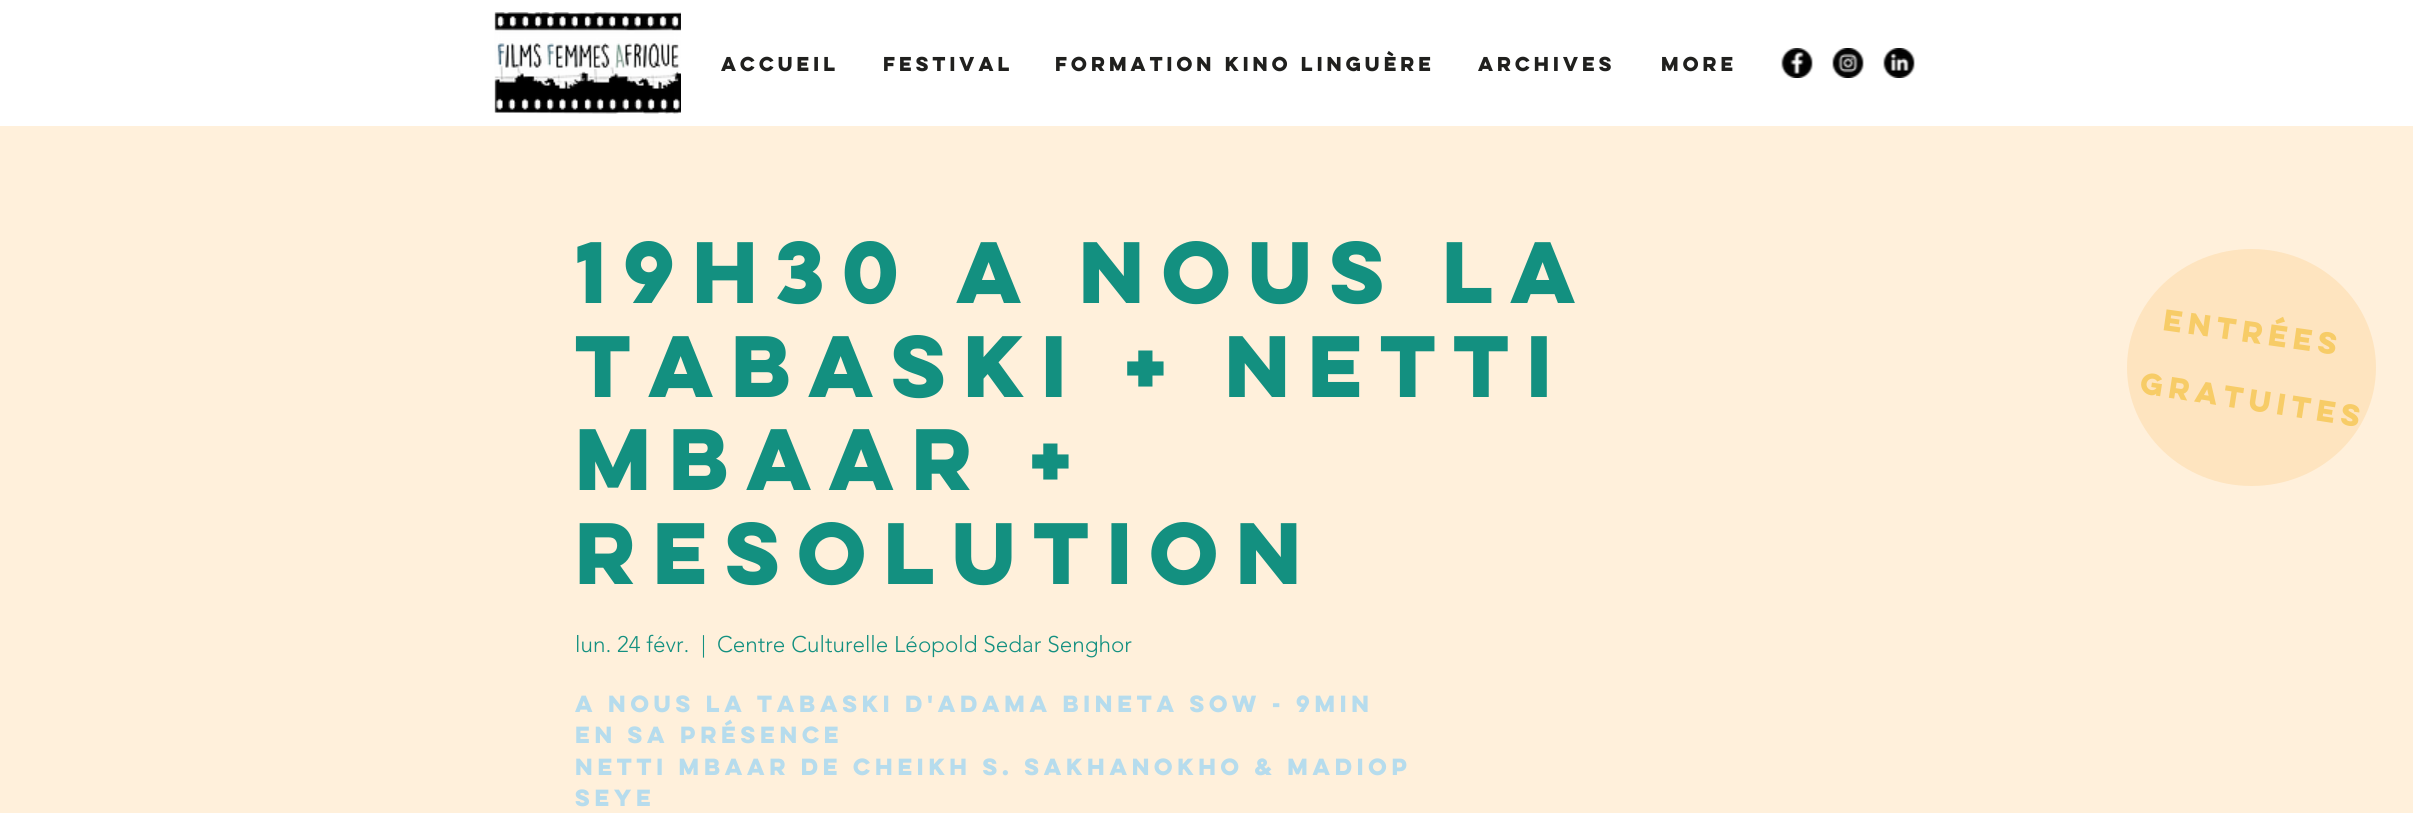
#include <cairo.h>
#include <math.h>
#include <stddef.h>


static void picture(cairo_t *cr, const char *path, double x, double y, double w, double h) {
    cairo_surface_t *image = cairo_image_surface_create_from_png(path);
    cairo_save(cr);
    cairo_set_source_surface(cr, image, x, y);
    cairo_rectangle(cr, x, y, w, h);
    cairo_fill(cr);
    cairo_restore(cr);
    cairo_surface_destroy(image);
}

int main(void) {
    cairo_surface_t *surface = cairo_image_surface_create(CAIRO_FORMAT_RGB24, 2413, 813);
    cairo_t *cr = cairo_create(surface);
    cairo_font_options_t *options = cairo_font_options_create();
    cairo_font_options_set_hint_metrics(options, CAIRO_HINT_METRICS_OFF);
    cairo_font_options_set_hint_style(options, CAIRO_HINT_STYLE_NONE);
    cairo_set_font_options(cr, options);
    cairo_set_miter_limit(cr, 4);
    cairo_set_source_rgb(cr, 1, 1, 1);
    cairo_paint(cr);
    picture(cr, "img1.png", 494, 12, 187, 102);
    cairo_select_font_face(cr, "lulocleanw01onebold", CAIRO_FONT_SLANT_NORMAL, CAIRO_FONT_WEIGHT_BOLD);
    cairo_set_font_size(cr, 18);
    cairo_set_source_rgb(cr, 0.125, 0.125, 0.118);
    cairo_move_to(cr, 721, 71);
    cairo_show_text(cr, "Accueil");
    cairo_move_to(cr, 883, 71);
    cairo_show_text(cr, "Festival");
    cairo_move_to(cr, 1055, 71);
    cairo_show_text(cr, "Formation Kino Linguère");
    cairo_move_to(cr, 1478, 71);
    cairo_show_text(cr, "Archives");
    cairo_move_to(cr, 1661, 71);
    cairo_show_text(cr, "More");
    picture(cr, "img2.png", 1781, 48, 32, 30);
    picture(cr, "img3.png", 1832, 48, 32, 30);
    picture(cr, "img4.png", 1883, 48, 32, 30);
    cairo_set_source_rgb(cr, 1, 0.941, 0.859);
    cairo_rectangle(cr, 0, 126, 2413, 687);
    cairo_fill(cr);
    cairo_set_font_size(cr, 78);
    cairo_set_source_rgb(cr, 0.075, 0.565, 0.502);
    cairo_move_to(cr, 575, 303);
    cairo_show_text(cr, "19h30 A NOUS LA");
    cairo_move_to(cr, 575, 397);
    cairo_show_text(cr, "TABASKI + NETTI");
    cairo_move_to(cr, 575, 490);
    cairo_show_text(cr, "MBAAR +");
    cairo_move_to(cr, 575, 584);
    cairo_show_text(cr, "RESOLUTION");
    cairo_select_font_face(cr, "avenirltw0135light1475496 Light", CAIRO_FONT_SLANT_NORMAL, CAIRO_FONT_WEIGHT_NORMAL);
    cairo_set_font_size(cr, 22.5);
    cairo_move_to(cr, 575, 652);
    cairo_show_text(cr, "lun. 24 févr.");
    cairo_move_to(cr, 701, 652);
    cairo_show_text(cr, "|");
    cairo_move_to(cr, 717, 652);
    cairo_show_text(cr, "Centre Culturelle Léopold Sedar Senghor");
    cairo_select_font_face(cr, "lulocleanw01onebold", CAIRO_FONT_SLANT_NORMAL, CAIRO_FONT_WEIGHT_BOLD);
    cairo_set_font_size(cr, 21);
    cairo_set_source_rgb(cr, 0.714, 0.863, 0.929);
    cairo_move_to(cr, 575, 712);
    cairo_show_text(cr, "A NOUS LA TABASKI d'Adama Bineta Sow - 9min");
    cairo_move_to(cr, 575, 743);
    cairo_show_text(cr, "en sa présence");
    cairo_move_to(cr, 575, 775);
    cairo_show_text(cr, "NETTI MBAAR de Cheikh S. Sakhanokho & Madiop");
    cairo_move_to(cr, 575, 806);
    cairo_show_text(cr, "Seye");
    cairo_set_source_rgb(cr, 0.996, 0.894, 0.749);
    cairo_new_path(cr);
    cairo_move_to(cr, 2251.5, 249);
    cairo_curve_to(cr, 2320.5, 249, 2376, 302, 2376, 367.5);
    cairo_curve_to(cr, 2376, 433, 2320.5, 486, 2251.5, 486);
    cairo_curve_to(cr, 2182.5, 486, 2127, 433, 2127, 367.5);
    cairo_curve_to(cr, 2127, 302, 2182.5, 249, 2251.5, 249);
    cairo_close_path(cr);
    cairo_fill(cr);
    cairo_set_font_size(cr, 27);
    cairo_set_source_rgb(cr, 0.965, 0.8, 0.404);
    cairo_save(cr);
    cairo_translate(cr, 2162, 330);
    cairo_rotate(cr, 8.1 * M_PI / 180);
    cairo_move_to(cr, 0, 0);
    cairo_show_text(cr, "entrées");
    cairo_restore(cr);
    cairo_save(cr);
    cairo_translate(cr, 2139, 393);
    cairo_rotate(cr, 8.8 * M_PI / 180);
    cairo_move_to(cr, 0, 0);
    cairo_show_text(cr, "gratuites");
    cairo_restore(cr);
    cairo_surface_write_to_png(surface, "page.png");
    cairo_font_options_destroy(options);
    cairo_destroy(cr);
    cairo_surface_destroy(surface);
    return 0;
}
